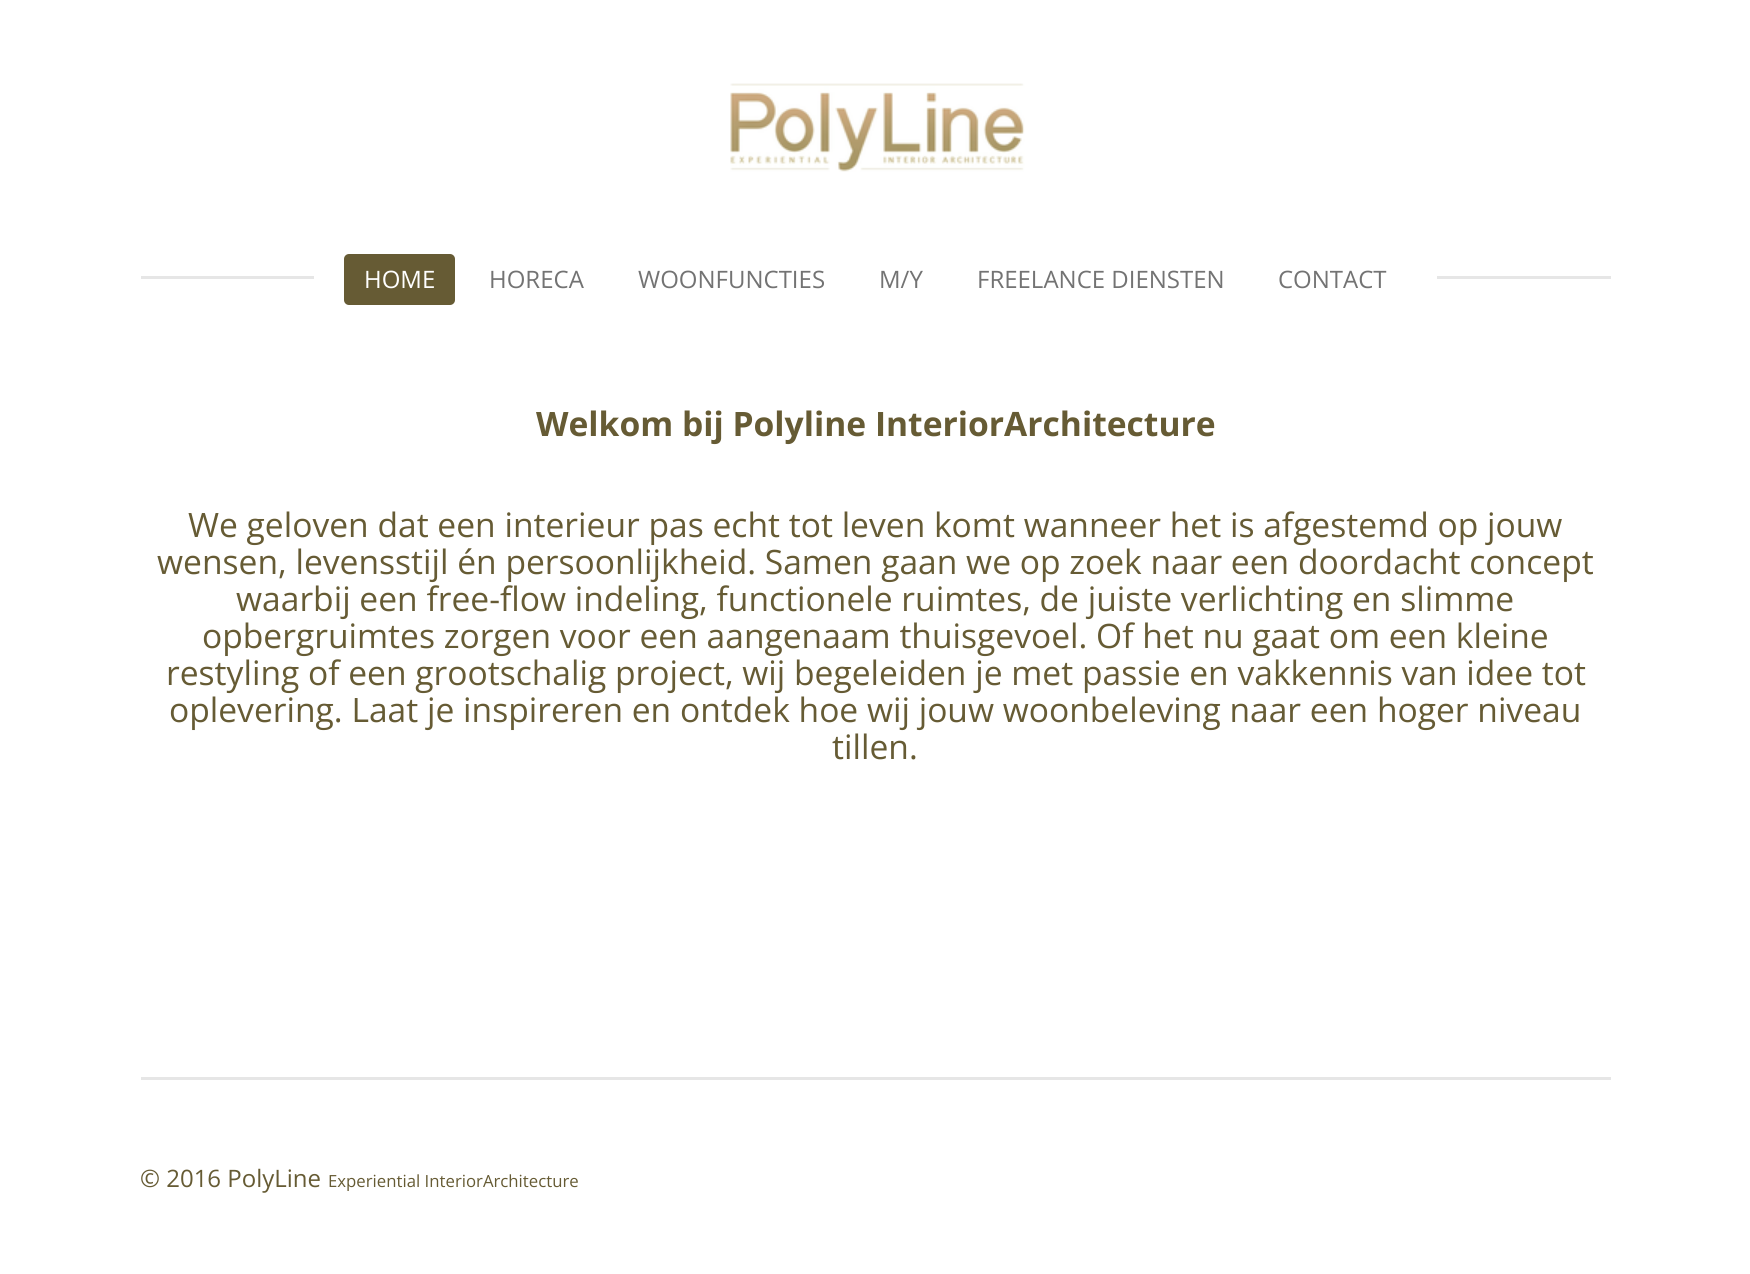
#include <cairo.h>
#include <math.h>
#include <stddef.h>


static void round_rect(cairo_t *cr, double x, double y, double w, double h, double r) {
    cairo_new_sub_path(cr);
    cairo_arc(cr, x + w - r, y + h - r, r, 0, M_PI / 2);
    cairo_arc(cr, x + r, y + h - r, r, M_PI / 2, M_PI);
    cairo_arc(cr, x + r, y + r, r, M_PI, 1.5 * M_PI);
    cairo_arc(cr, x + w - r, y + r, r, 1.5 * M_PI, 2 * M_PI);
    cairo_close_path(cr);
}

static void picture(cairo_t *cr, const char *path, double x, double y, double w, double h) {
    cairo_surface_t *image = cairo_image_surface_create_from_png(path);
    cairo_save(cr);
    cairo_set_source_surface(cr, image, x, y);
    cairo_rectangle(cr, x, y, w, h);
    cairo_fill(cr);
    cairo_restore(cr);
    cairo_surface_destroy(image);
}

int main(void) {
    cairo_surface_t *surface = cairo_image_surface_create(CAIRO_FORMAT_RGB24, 1750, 1274);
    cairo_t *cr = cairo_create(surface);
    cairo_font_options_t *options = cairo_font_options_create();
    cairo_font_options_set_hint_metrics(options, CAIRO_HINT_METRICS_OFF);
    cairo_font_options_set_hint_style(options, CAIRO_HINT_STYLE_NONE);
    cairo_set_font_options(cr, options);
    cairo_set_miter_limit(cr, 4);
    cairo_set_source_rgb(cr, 1, 1, 1);
    cairo_paint(cr);
    picture(cr, "img1.png", 730, 83, 295, 89);
    cairo_set_source_rgb(cr, 0.902, 0.902, 0.902);
    cairo_rectangle(cr, 141, 276, 173, 3);
    cairo_fill(cr);
    cairo_set_source_rgb(cr, 0.4, 0.357, 0.204);
    round_rect(cr, 344, 254, 111, 51, 5);
    cairo_fill(cr);
    cairo_select_font_face(cr, "Open Sans", CAIRO_FONT_SLANT_NORMAL, CAIRO_FONT_WEIGHT_NORMAL);
    cairo_set_font_size(cr, 24);
    cairo_set_source_rgb(cr, 1, 1, 1);
    cairo_move_to(cr, 364, 288);
    cairo_show_text(cr, "HOME");
    cairo_set_source_rgb(cr, 0.451, 0.451, 0.451);
    cairo_move_to(cr, 489, 288);
    cairo_show_text(cr, "HORECA");
    cairo_move_to(cr, 638, 288);
    cairo_show_text(cr, "WOONFUNCTIES");
    cairo_move_to(cr, 879, 288);
    cairo_show_text(cr, "M/Y");
    cairo_move_to(cr, 977, 288);
    cairo_show_text(cr, "FREELANCE DIENSTEN");
    cairo_move_to(cr, 1278, 288);
    cairo_show_text(cr, "CONTACT");
    cairo_set_source_rgb(cr, 0.902, 0.902, 0.902);
    cairo_rectangle(cr, 1437, 276, 174, 3);
    cairo_fill(cr);
    cairo_select_font_face(cr, "Open Sans", CAIRO_FONT_SLANT_NORMAL, CAIRO_FONT_WEIGHT_BOLD);
    cairo_set_font_size(cr, 33.6);
    cairo_set_source_rgb(cr, 0.4, 0.357, 0.204);
    cairo_move_to(cr, 536, 436);
    cairo_show_text(cr, "Welkom bij Polyline InteriorArchitecture");
    cairo_select_font_face(cr, "Open Sans", CAIRO_FONT_SLANT_NORMAL, CAIRO_FONT_WEIGHT_NORMAL);
    cairo_move_to(cr, 188, 537);
    cairo_show_text(cr, "We geloven dat een interieur pas echt tot leven komt wanneer het is afgestemd op jouw");
    cairo_move_to(cr, 157, 574);
    cairo_show_text(cr, "wensen, levensstijl én persoonlijkheid. Samen gaan we op zoek naar een doordacht concept");
    cairo_move_to(cr, 236, 611);
    cairo_show_text(cr, "waarbij een free-flow indeling, functionele ruimtes, de juiste verlichting en slimme");
    cairo_move_to(cr, 202, 648);
    cairo_show_text(cr, "opbergruimtes zorgen voor een aangenaam thuisgevoel. Of het nu gaat om een kleine");
    cairo_move_to(cr, 166, 685);
    cairo_show_text(cr, "restyling of een grootschalig project, wij begeleiden je met passie en vakkennis van idee tot");
    cairo_move_to(cr, 169, 722);
    cairo_show_text(cr, "oplevering. Laat je inspireren en ontdek hoe wij jouw woonbeleving naar een hoger niveau");
    cairo_move_to(cr, 832, 759);
    cairo_show_text(cr, "tillen.");
    cairo_set_source_rgb(cr, 0.902, 0.902, 0.902);
    cairo_rectangle(cr, 141, 1077, 1470, 3);
    cairo_fill(cr);
    cairo_set_font_size(cr, 24);
    cairo_set_source_rgb(cr, 0.4, 0.357, 0.204);
    cairo_move_to(cr, 140, 1187);
    cairo_show_text(cr, "© 2016 PolyLine");
    cairo_set_font_size(cr, 16.75);
    cairo_move_to(cr, 328, 1187);
    cairo_show_text(cr, "Experiential InteriorArchitecture");
    cairo_surface_write_to_png(surface, "page.png");
    cairo_font_options_destroy(options);
    cairo_destroy(cr);
    cairo_surface_destroy(surface);
    return 0;
}
